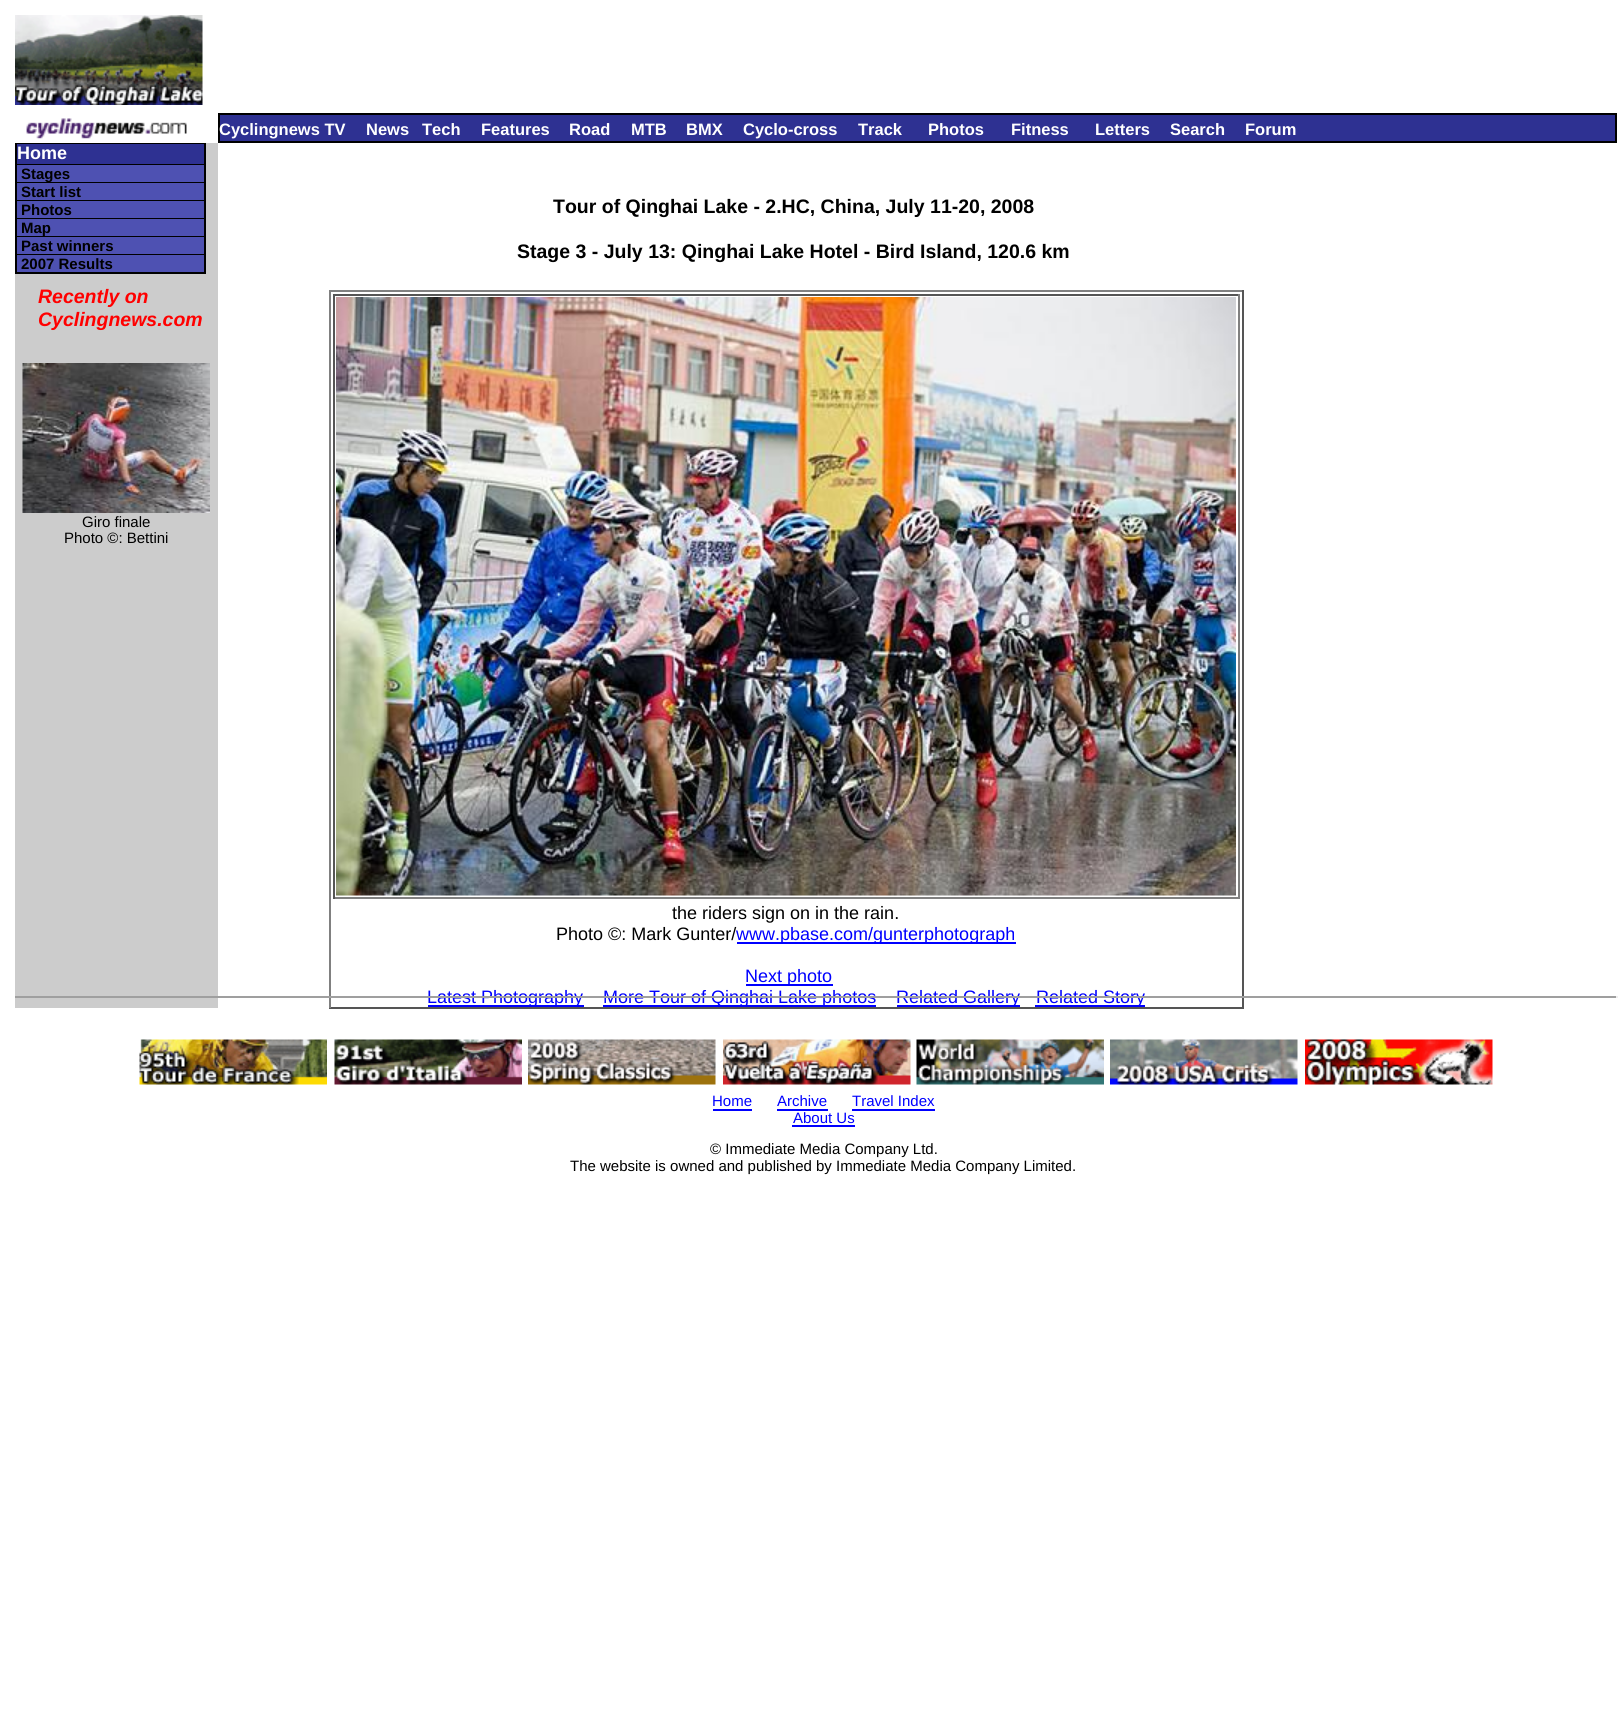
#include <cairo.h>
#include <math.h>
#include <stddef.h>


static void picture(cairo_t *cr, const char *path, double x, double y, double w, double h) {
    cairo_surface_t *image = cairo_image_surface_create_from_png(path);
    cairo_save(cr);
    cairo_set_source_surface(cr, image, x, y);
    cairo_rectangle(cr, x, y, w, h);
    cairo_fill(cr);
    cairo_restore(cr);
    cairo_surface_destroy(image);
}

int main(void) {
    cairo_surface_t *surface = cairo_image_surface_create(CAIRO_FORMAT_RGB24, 1624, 1734);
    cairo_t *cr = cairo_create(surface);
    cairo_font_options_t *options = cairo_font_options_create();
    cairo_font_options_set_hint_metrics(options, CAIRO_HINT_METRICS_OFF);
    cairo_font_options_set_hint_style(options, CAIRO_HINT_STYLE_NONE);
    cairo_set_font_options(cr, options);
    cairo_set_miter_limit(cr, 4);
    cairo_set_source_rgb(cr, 1, 1, 1);
    cairo_paint(cr);
    picture(cr, "img1.png", 15, 15, 188, 90);
    picture(cr, "img2.png", 26, 118, 161, 21);
    cairo_set_source_rgb(cr, 0.18, 0.192, 0.573);
    cairo_rectangle(cr, 219, 114, 1397, 28);
    cairo_fill_preserve(cr);
    cairo_set_source_rgb(cr, 0, 0, 0);
    cairo_stroke(cr);
    cairo_select_font_face(cr, "Liberation Sans", CAIRO_FONT_SLANT_NORMAL, CAIRO_FONT_WEIGHT_BOLD);
    cairo_set_font_size(cr, 16.5);
    cairo_set_source_rgb(cr, 1, 1, 1);
    cairo_move_to(cr, 219, 135);
    cairo_show_text(cr, "Cyclingnews TV");
    cairo_move_to(cr, 366, 135);
    cairo_show_text(cr, "News");
    cairo_move_to(cr, 422, 135);
    cairo_show_text(cr, "Tech");
    cairo_move_to(cr, 481, 135);
    cairo_show_text(cr, "Features");
    cairo_move_to(cr, 569, 135);
    cairo_show_text(cr, "Road");
    cairo_move_to(cr, 631, 135);
    cairo_show_text(cr, "MTB");
    cairo_move_to(cr, 686, 135);
    cairo_show_text(cr, "BMX");
    cairo_move_to(cr, 743, 135);
    cairo_show_text(cr, "Cyclo-cross");
    cairo_move_to(cr, 858, 135);
    cairo_show_text(cr, "Track");
    cairo_move_to(cr, 928, 135);
    cairo_show_text(cr, "Photos");
    cairo_move_to(cr, 1011, 135);
    cairo_show_text(cr, "Fitness");
    cairo_move_to(cr, 1095, 135);
    cairo_show_text(cr, "Letters");
    cairo_move_to(cr, 1170, 135);
    cairo_show_text(cr, "Search");
    cairo_move_to(cr, 1245, 135);
    cairo_show_text(cr, "Forum");
    cairo_set_source_rgb(cr, 0.8, 0.8, 0.8);
    cairo_rectangle(cr, 15, 143, 203, 865);
    cairo_fill(cr);
    cairo_set_source_rgb(cr, 0, 0, 0);
    cairo_rectangle(cr, 15, 143, 191, 1);
    cairo_fill(cr);
    cairo_set_source_rgb(cr, 0.18, 0.192, 0.573);
    cairo_rectangle(cr, 17, 144, 187, 20);
    cairo_fill(cr);
    cairo_set_source_rgb(cr, 0, 0, 0);
    cairo_rectangle(cr, 204, 144, 2, 129);
    cairo_fill(cr);
    cairo_rectangle(cr, 15, 164, 191, 1);
    cairo_fill(cr);
    cairo_rectangle(cr, 15, 144, 2, 21);
    cairo_fill(cr);
    cairo_set_font_size(cr, 18);
    cairo_set_source_rgb(cr, 1, 1, 1);
    cairo_move_to(cr, 17, 159);
    cairo_show_text(cr, "Home");
    cairo_set_source_rgb(cr, 0.306, 0.318, 0.698);
    cairo_rectangle(cr, 17, 165, 187, 17);
    cairo_fill(cr);
    cairo_set_source_rgb(cr, 0, 0, 0);
    cairo_rectangle(cr, 15, 182, 191, 1);
    cairo_fill(cr);
    cairo_rectangle(cr, 15, 165, 2, 18);
    cairo_fill(cr);
    cairo_set_font_size(cr, 15);
    cairo_move_to(cr, 21, 179);
    cairo_show_text(cr, "Stages");
    cairo_set_source_rgb(cr, 0.306, 0.318, 0.698);
    cairo_rectangle(cr, 17, 183, 187, 17);
    cairo_fill(cr);
    cairo_set_source_rgb(cr, 0, 0, 0);
    cairo_rectangle(cr, 15, 200, 191, 1);
    cairo_fill(cr);
    cairo_rectangle(cr, 15, 183, 2, 18);
    cairo_fill(cr);
    cairo_move_to(cr, 21, 197);
    cairo_show_text(cr, "Start list");
    cairo_set_source_rgb(cr, 0.306, 0.318, 0.698);
    cairo_rectangle(cr, 17, 201, 187, 17);
    cairo_fill(cr);
    cairo_set_source_rgb(cr, 0, 0, 0);
    cairo_rectangle(cr, 15, 218, 191, 1);
    cairo_fill(cr);
    cairo_rectangle(cr, 15, 201, 2, 18);
    cairo_fill(cr);
    cairo_move_to(cr, 21, 215);
    cairo_show_text(cr, "Photos");
    cairo_set_source_rgb(cr, 0.306, 0.318, 0.698);
    cairo_rectangle(cr, 17, 219, 187, 17);
    cairo_fill(cr);
    cairo_set_source_rgb(cr, 0, 0, 0);
    cairo_rectangle(cr, 15, 236, 191, 1);
    cairo_fill(cr);
    cairo_rectangle(cr, 15, 219, 2, 18);
    cairo_fill(cr);
    cairo_move_to(cr, 21, 233);
    cairo_show_text(cr, "Map");
    cairo_set_source_rgb(cr, 0.306, 0.318, 0.698);
    cairo_rectangle(cr, 17, 237, 187, 17);
    cairo_fill(cr);
    cairo_set_source_rgb(cr, 0, 0, 0);
    cairo_rectangle(cr, 15, 254, 191, 1);
    cairo_fill(cr);
    cairo_rectangle(cr, 15, 237, 2, 18);
    cairo_fill(cr);
    cairo_move_to(cr, 21, 251);
    cairo_show_text(cr, "Past winners");
    cairo_set_source_rgb(cr, 0.306, 0.318, 0.698);
    cairo_rectangle(cr, 17, 255, 187, 17);
    cairo_fill(cr);
    cairo_set_source_rgb(cr, 0, 0, 0);
    cairo_rectangle(cr, 15, 272, 191, 2);
    cairo_fill(cr);
    cairo_rectangle(cr, 15, 255, 2, 18);
    cairo_fill(cr);
    cairo_move_to(cr, 21, 269);
    cairo_show_text(cr, "2007 Results");
    cairo_select_font_face(cr, "Liberation Sans", CAIRO_FONT_SLANT_ITALIC, CAIRO_FONT_WEIGHT_BOLD);
    cairo_set_font_size(cr, 19.5);
    cairo_set_source_rgb(cr, 1, 0, 0);
    cairo_move_to(cr, 38, 303);
    cairo_show_text(cr, "Recently on");
    cairo_move_to(cr, 38, 326);
    cairo_show_text(cr, "Cyclingnews.com");
    picture(cr, "img3.png", 22, 363, 188, 150);
    cairo_select_font_face(cr, "Liberation Sans", CAIRO_FONT_SLANT_NORMAL, CAIRO_FONT_WEIGHT_NORMAL);
    cairo_set_font_size(cr, 15);
    cairo_set_source_rgb(cr, 0, 0, 0);
    cairo_move_to(cr, 82, 527);
    cairo_show_text(cr, "Giro finale");
    cairo_move_to(cr, 64, 543);
    cairo_show_text(cr, "Photo ©: Bettini");
    cairo_select_font_face(cr, "Liberation Sans", CAIRO_FONT_SLANT_NORMAL, CAIRO_FONT_WEIGHT_BOLD);
    cairo_set_font_size(cr, 19.5);
    cairo_move_to(cr, 553, 213);
    cairo_show_text(cr, "Tour of Qinghai Lake - 2.HC, China, July 11-20, 2008");
    cairo_move_to(cr, 517, 258);
    cairo_show_text(cr, "Stage 3 - July 13: Qinghai Lake Hotel - Bird Island, 120.6 km");
    cairo_set_source_rgb(cr, 0.502, 0.502, 0.502);
    cairo_rectangle(cr, 329, 290, 915, 2);
    cairo_fill(cr);
    cairo_set_source_rgb(cr, 0.333, 0.333, 0.333);
    cairo_rectangle(cr, 1242, 290, 2, 718);
    cairo_fill(cr);
    cairo_rectangle(cr, 329, 1007, 915, 2);
    cairo_fill(cr);
    cairo_set_source_rgb(cr, 0.502, 0.502, 0.502);
    cairo_rectangle(cr, 329, 290, 2, 718);
    cairo_fill(cr);
    cairo_set_source_rgb(cr, 0.333, 0.333, 0.333);
    cairo_rectangle(cr, 333, 294, 906, 2);
    cairo_fill(cr);
    cairo_set_source_rgb(cr, 0.502, 0.502, 0.502);
    cairo_rectangle(cr, 1238, 294, 2, 605);
    cairo_fill(cr);
    cairo_rectangle(cr, 333, 897, 906, 2);
    cairo_fill(cr);
    cairo_set_source_rgb(cr, 0.333, 0.333, 0.333);
    cairo_rectangle(cr, 333, 294, 2, 605);
    cairo_fill(cr);
    picture(cr, "img4.png", 336, 297, 900, 599);
    cairo_select_font_face(cr, "Liberation Sans", CAIRO_FONT_SLANT_NORMAL, CAIRO_FONT_WEIGHT_NORMAL);
    cairo_set_font_size(cr, 18);
    cairo_set_source_rgb(cr, 0, 0, 0);
    cairo_move_to(cr, 672, 919);
    cairo_show_text(cr, "the riders sign on in the rain.");
    cairo_move_to(cr, 556, 940);
    cairo_show_text(cr, "Photo ©: Mark Gunter/");
    cairo_set_source_rgb(cr, 0, 0, 1);
    cairo_rectangle(cr, 737, 942, 279, 2);
    cairo_fill(cr);
    cairo_move_to(cr, 736, 940);
    cairo_show_text(cr, "www.pbase.com/gunterphotograph");
    cairo_rectangle(cr, 746, 984, 87, 2);
    cairo_fill(cr);
    cairo_move_to(cr, 745, 982);
    cairo_show_text(cr, "Next photo");
    cairo_rectangle(cr, 428, 1005, 156, 2);
    cairo_fill(cr);
    cairo_move_to(cr, 427, 1003);
    cairo_show_text(cr, "Latest Photography");
    cairo_rectangle(cr, 603, 1005, 273, 2);
    cairo_fill(cr);
    cairo_move_to(cr, 603, 1003);
    cairo_show_text(cr, "More Tour of Qinghai Lake photos");
    cairo_rectangle(cr, 897, 1005, 123, 2);
    cairo_fill(cr);
    cairo_move_to(cr, 896, 1003);
    cairo_show_text(cr, "Related Gallery");
    cairo_rectangle(cr, 1035, 1005, 110, 2);
    cairo_fill(cr);
    cairo_move_to(cr, 1036, 1003);
    cairo_show_text(cr, "Related Story");
    cairo_set_source_rgb(cr, 0.624, 0.624, 0.624);
    cairo_rectangle(cr, 15, 996, 1602, 2);
    cairo_fill(cr);
    cairo_set_source_rgb(cr, 0.933, 0.933, 0.933);
    cairo_rectangle(cr, 1616, 996, 2, 2);
    cairo_fill(cr);
    picture(cr, "img5.png", 139, 1039, 188, 46);
    picture(cr, "img6.png", 334, 1039, 188, 46);
    picture(cr, "img7.png", 528, 1039, 188, 46);
    picture(cr, "img8.png", 723, 1039, 188, 46);
    picture(cr, "img9.png", 916, 1039, 188, 46);
    picture(cr, "img10.png", 1110, 1039, 188, 46);
    picture(cr, "img11.png", 1305, 1039, 188, 46);
    cairo_set_font_size(cr, 15);
    cairo_set_source_rgb(cr, 0, 0, 1);
    cairo_move_to(cr, 712, 1106);
    cairo_show_text(cr, "Home");
    cairo_rectangle(cr, 713, 1109, 39, 2);
    cairo_fill(cr);
    cairo_move_to(cr, 777, 1106);
    cairo_show_text(cr, "Archive");
    cairo_rectangle(cr, 777, 1109, 51, 2);
    cairo_fill(cr);
    cairo_move_to(cr, 852, 1106);
    cairo_show_text(cr, "Travel Index");
    cairo_rectangle(cr, 852, 1109, 83, 2);
    cairo_fill(cr);
    cairo_move_to(cr, 793, 1123);
    cairo_show_text(cr, "About Us");
    cairo_rectangle(cr, 792, 1125, 63, 2);
    cairo_fill(cr);
    cairo_set_source_rgb(cr, 0, 0, 0);
    cairo_move_to(cr, 710, 1154);
    cairo_show_text(cr, "© Immediate Media Company Ltd.");
    cairo_move_to(cr, 570, 1171);
    cairo_show_text(cr, "The website is owned and published by Immediate Media Company Limited.");
    cairo_surface_write_to_png(surface, "page.png");
    cairo_font_options_destroy(options);
    cairo_destroy(cr);
    cairo_surface_destroy(surface);
    return 0;
}
